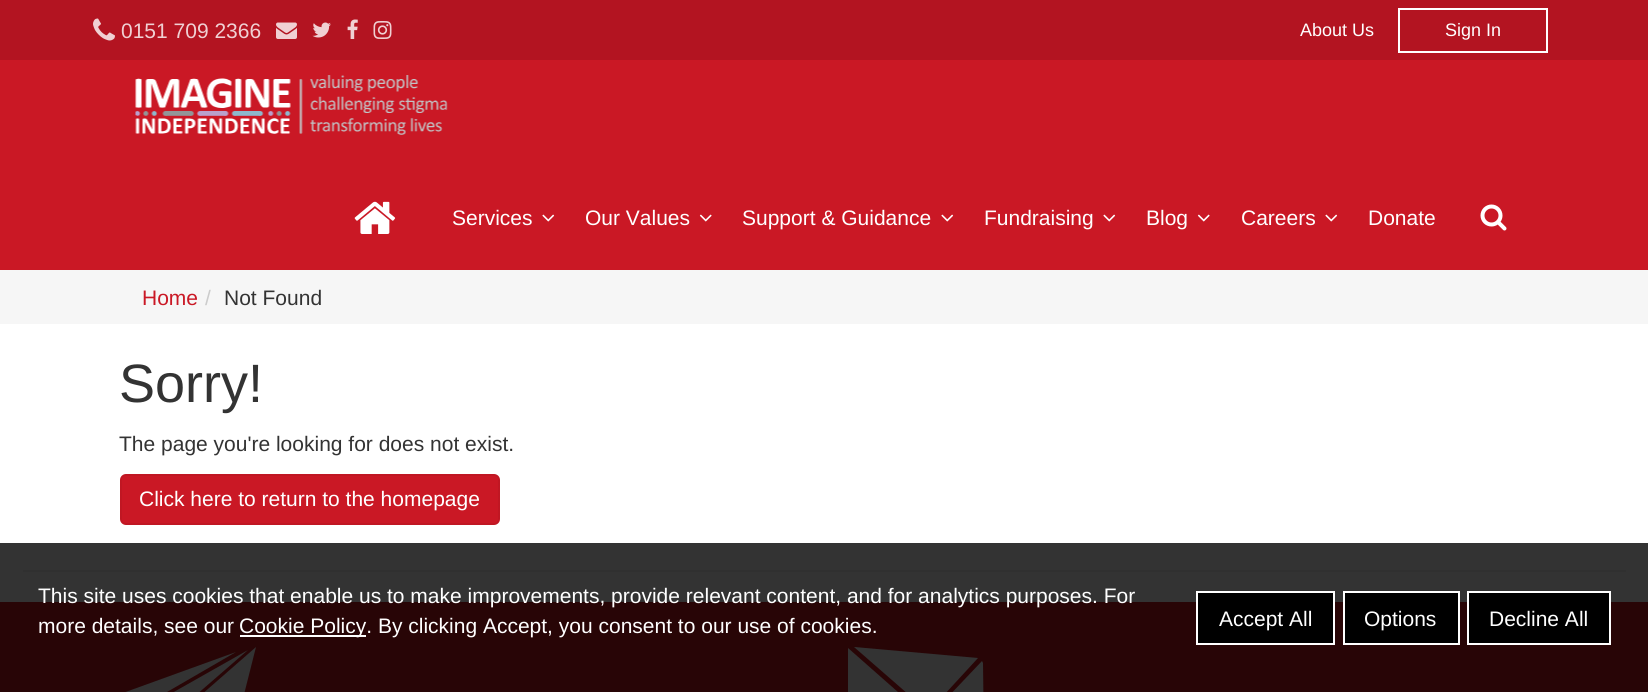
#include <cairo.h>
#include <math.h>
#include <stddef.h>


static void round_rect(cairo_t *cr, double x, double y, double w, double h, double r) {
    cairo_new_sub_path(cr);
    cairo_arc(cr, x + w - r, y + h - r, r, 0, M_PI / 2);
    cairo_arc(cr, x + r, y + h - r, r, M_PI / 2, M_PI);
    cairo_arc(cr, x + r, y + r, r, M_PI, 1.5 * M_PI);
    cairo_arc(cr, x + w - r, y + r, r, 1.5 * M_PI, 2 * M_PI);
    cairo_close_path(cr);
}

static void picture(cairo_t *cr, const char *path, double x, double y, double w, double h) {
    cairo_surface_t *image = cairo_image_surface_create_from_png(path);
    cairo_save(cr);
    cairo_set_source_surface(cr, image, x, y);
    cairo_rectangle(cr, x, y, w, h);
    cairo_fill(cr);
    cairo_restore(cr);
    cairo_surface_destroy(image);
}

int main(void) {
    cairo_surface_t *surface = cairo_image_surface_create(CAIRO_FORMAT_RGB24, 1648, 692);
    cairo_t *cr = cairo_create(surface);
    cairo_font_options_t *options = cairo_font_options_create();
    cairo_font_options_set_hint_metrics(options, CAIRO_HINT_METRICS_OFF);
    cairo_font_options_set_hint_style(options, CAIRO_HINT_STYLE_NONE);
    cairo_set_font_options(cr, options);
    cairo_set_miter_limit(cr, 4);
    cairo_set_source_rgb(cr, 1, 1, 1);
    cairo_paint(cr);
    cairo_set_source_rgb(cr, 0.2, 0.2, 0.2);
    cairo_rectangle(cr, 0, 543, 1648, 59);
    cairo_fill(cr);
    cairo_set_source_rgb(cr, 0.792, 0.094, 0.145);
    cairo_rectangle(cr, 0, 60, 1648, 210);
    cairo_fill(cr);
    cairo_set_source_rgb(cr, 0.702, 0.082, 0.129);
    cairo_rectangle(cr, 0, 0, 1648, 60);
    cairo_fill(cr);
    picture(cr, "img1.png", 93, 18, 22, 23);
    cairo_select_font_face(cr, "Liberation Sans", CAIRO_FONT_SLANT_NORMAL, CAIRO_FONT_WEIGHT_NORMAL);
    cairo_set_font_size(cr, 21);
    cairo_set_source_rgb(cr, 0.941, 0.816, 0.827);
    cairo_move_to(cr, 121, 38);
    cairo_show_text(cr, "0151 709 2366");
    picture(cr, "img2.png", 276, 22, 21, 17);
    picture(cr, "img3.png", 312, 22, 19, 16);
    picture(cr, "img4.png", 347, 19, 11, 20);
    picture(cr, "img5.png", 373, 21, 19, 18);
    cairo_set_font_size(cr, 18);
    cairo_set_source_rgb(cr, 1, 1, 1);
    cairo_move_to(cr, 1300, 36);
    cairo_show_text(cr, "About Us");
    cairo_rectangle(cr, 1399, 9, 148, 43);
    cairo_stroke(cr);
    cairo_move_to(cr, 1445, 36);
    cairo_show_text(cr, "Sign In");
    picture(cr, "img6.png", 135, 75, 313, 60);
    picture(cr, "img7.png", 354, 201, 42, 33);
    cairo_set_font_size(cr, 21);
    cairo_move_to(cr, 452, 225);
    cairo_show_text(cr, "Services");
    picture(cr, "img8.png", 542, 214, 13, 8);
    cairo_move_to(cr, 585, 225);
    cairo_show_text(cr, "Our Values");
    picture(cr, "img9.png", 699, 214, 13, 8);
    cairo_move_to(cr, 742, 225);
    cairo_show_text(cr, "Support & Guidance");
    picture(cr, "img8.png", 941, 214, 13, 8);
    cairo_move_to(cr, 984, 225);
    cairo_show_text(cr, "Fundraising");
    picture(cr, "img8.png", 1103, 214, 13, 8);
    cairo_move_to(cr, 1146, 225);
    cairo_show_text(cr, "Blog");
    picture(cr, "img9.png", 1197, 214, 13, 8);
    cairo_move_to(cr, 1241, 225);
    cairo_show_text(cr, "Careers");
    picture(cr, "img8.png", 1325, 214, 13, 8);
    cairo_move_to(cr, 1368, 225);
    cairo_show_text(cr, "Donate");
    picture(cr, "img10.png", 1480, 204, 27, 27);
    cairo_set_source_rgb(cr, 0.961, 0.961, 0.961);
    cairo_rectangle(cr, 0, 270, 1648, 54);
    cairo_fill(cr);
    cairo_set_source_rgb(cr, 0.792, 0.094, 0.145);
    cairo_move_to(cr, 142, 305);
    cairo_show_text(cr, "Home");
    cairo_set_source_rgb(cr, 0.8, 0.8, 0.8);
    cairo_move_to(cr, 205, 305);
    cairo_show_text(cr, "/");
    cairo_set_source_rgb(cr, 0.2, 0.2, 0.2);
    cairo_move_to(cr, 224, 305);
    cairo_show_text(cr, "Not Found");
    cairo_set_font_size(cr, 54);
    cairo_move_to(cr, 119, 402);
    cairo_show_text(cr, "Sorry!");
    cairo_set_font_size(cr, 21);
    cairo_move_to(cr, 119, 451);
    cairo_show_text(cr, "The page you're looking for does not exist.");
    cairo_set_source_rgb(cr, 0.792, 0.094, 0.145);
    round_rect(cr, 121, 475, 378, 49, 5);
    cairo_fill_preserve(cr);
    cairo_set_source_rgb(cr, 0.753, 0.09, 0.137);
    cairo_stroke(cr);
    cairo_set_source_rgb(cr, 1, 1, 1);
    cairo_move_to(cr, 139, 506);
    cairo_show_text(cr, "Click here to return to the homepage");
    cairo_set_source_rgb(cr, 0.188, 0.188, 0.188);
    cairo_rectangle(cr, 23, 570, 1603, 2);
    cairo_fill(cr);
    cairo_set_source_rgb(cr, 0.157, 0.02, 0.027);
    cairo_rectangle(cr, 0, 602, 1648, 90);
    cairo_fill(cr);
    cairo_set_source_rgb(cr, 1, 1, 1);
    cairo_move_to(cr, 38, 603);
    cairo_show_text(cr, "This site uses cookies that enable us to make improvements, provide relevant content, and for analytics purposes. For");
    cairo_move_to(cr, 38, 633);
    cairo_show_text(cr, "more details, see our");
    cairo_rectangle(cr, 240, 635, 126, 2);
    cairo_fill(cr);
    cairo_move_to(cr, 239, 633);
    cairo_show_text(cr, "Cookie Policy. By clicking Accept, you consent to our use of cookies.");
    cairo_set_source_rgb(cr, 0, 0, 0);
    cairo_rectangle(cr, 1197, 592, 137, 52);
    cairo_fill_preserve(cr);
    cairo_set_source_rgb(cr, 1, 1, 1);
    cairo_stroke(cr);
    cairo_move_to(cr, 1219, 626);
    cairo_show_text(cr, "Accept All");
    cairo_set_source_rgb(cr, 0, 0, 0);
    cairo_rectangle(cr, 1344, 592, 115, 52);
    cairo_fill_preserve(cr);
    cairo_set_source_rgb(cr, 1, 1, 1);
    cairo_stroke(cr);
    cairo_move_to(cr, 1364, 626);
    cairo_show_text(cr, "Options");
    cairo_set_source_rgb(cr, 0, 0, 0);
    cairo_rectangle(cr, 1468, 592, 142, 52);
    cairo_fill_preserve(cr);
    cairo_set_source_rgb(cr, 1, 1, 1);
    cairo_stroke(cr);
    cairo_move_to(cr, 1489, 626);
    cairo_show_text(cr, "Decline All");
    cairo_set_source_rgb(cr, 0.2, 0.2, 0.2);
    cairo_new_path(cr);
    cairo_move_to(cr, 173, 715);
    cairo_line_to(cr, 163, 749);
    cairo_line_to(cr, 149, 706);
    cairo_line_to(cr, 248, 650);
    cairo_close_path(cr);
    cairo_move_to(cr, 120, 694);
    cairo_line_to(cr, 148, 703);
    cairo_line_to(cr, 236, 652);
    cairo_close_path(cr);
    cairo_move_to(cr, 166, 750);
    cairo_line_to(cr, 196, 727);
    cairo_line_to(cr, 175, 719);
    cairo_close_path(cr);
    cairo_move_to(cr, 177, 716);
    cairo_line_to(cr, 233, 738);
    cairo_line_to(cr, 256, 647);
    cairo_close_path(cr);
    cairo_fill(cr);
    cairo_new_path(cr);
    cairo_move_to(cr, 848, 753);
    cairo_line_to(cr, 848, 650);
    cairo_line_to(cr, 848, 648);
    cairo_line_to(cr, 907, 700);
    cairo_close_path(cr);
    cairo_fill(cr);
    cairo_new_path(cr);
    cairo_move_to(cr, 854, 647);
    cairo_line_to(cr, 978, 658);
    cairo_line_to(cr, 932, 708);
    cairo_curve_to(cr, 930, 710, 926, 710, 924, 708);
    cairo_close_path(cr);
    cairo_fill(cr);
    cairo_new_path(cr);
    cairo_move_to(cr, 945, 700);
    cairo_line_to(cr, 982, 661);
    cairo_line_to(cr, 983, 663);
    cairo_line_to(cr, 984, 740);
    cairo_close_path(cr);
    cairo_fill(cr);
    cairo_surface_write_to_png(surface, "page.png");
    cairo_font_options_destroy(options);
    cairo_destroy(cr);
    cairo_surface_destroy(surface);
    return 0;
}
